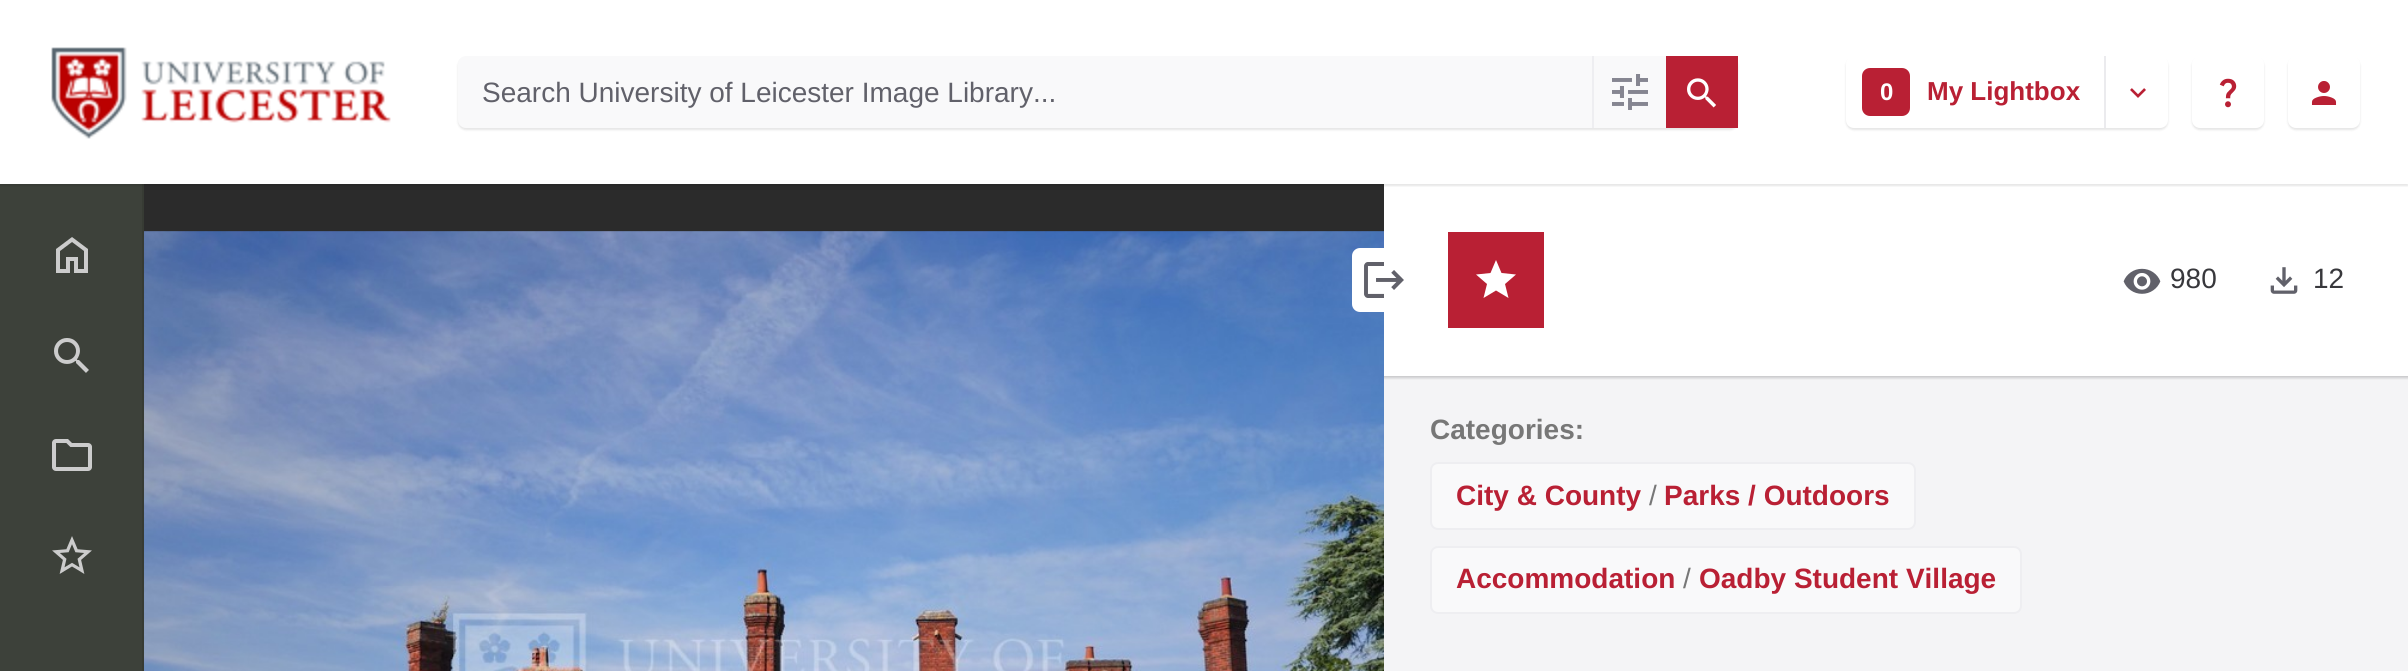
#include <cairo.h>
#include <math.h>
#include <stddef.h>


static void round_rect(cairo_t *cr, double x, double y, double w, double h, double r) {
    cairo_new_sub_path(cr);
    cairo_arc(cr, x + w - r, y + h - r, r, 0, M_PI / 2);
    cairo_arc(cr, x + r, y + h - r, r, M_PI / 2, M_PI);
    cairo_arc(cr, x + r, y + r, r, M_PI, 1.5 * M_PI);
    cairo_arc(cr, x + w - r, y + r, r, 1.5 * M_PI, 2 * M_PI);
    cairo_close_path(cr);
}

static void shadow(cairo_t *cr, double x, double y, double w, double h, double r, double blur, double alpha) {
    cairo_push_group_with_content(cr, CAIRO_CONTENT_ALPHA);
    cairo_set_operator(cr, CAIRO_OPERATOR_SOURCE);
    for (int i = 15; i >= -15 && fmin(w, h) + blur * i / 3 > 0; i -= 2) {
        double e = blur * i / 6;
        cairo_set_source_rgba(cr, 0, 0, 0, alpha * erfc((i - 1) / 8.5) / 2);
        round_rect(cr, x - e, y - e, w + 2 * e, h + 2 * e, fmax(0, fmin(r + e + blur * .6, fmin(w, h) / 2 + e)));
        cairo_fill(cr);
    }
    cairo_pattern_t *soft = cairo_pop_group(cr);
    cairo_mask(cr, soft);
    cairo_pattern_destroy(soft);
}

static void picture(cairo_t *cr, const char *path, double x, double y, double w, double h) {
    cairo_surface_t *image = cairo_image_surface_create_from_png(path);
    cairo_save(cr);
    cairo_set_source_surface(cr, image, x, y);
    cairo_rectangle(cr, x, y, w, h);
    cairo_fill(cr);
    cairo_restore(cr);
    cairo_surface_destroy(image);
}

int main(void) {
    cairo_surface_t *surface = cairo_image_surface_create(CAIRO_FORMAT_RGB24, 2408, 671);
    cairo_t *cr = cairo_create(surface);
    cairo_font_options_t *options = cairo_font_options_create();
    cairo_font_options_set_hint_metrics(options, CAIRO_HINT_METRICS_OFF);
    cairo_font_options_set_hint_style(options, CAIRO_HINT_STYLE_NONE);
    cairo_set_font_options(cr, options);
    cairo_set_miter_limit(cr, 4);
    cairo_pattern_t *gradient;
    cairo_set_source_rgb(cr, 1, 1, 1);
    cairo_paint(cr);
    cairo_set_source_rgb(cr, 0.239, 0.255, 0.227);
    cairo_rectangle(cr, 0, 184, 142, 487);
    cairo_fill(cr);
    cairo_set_source_rgb(cr, 0.216, 0.231, 0.204);
    cairo_rectangle(cr, 142, 184, 2, 487);
    cairo_fill(cr);
    cairo_set_source_rgb(cr, 0.169, 0.169, 0.169);
    cairo_rectangle(cr, 144, 184, 1240, 487);
    cairo_fill(cr);
    cairo_save(cr);
    cairo_rectangle(cr, 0, 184, 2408, 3);
    cairo_clip(cr);
    cairo_set_source_rgb(cr, 0, 0, 0);
    shadow(cr, 0, 2, 2408, 184, 0, 1, 0.1);
    cairo_restore(cr);
    picture(cr, "img1.png", 51, 47, 340, 92);
    cairo_set_source_rgb(cr, 0, 0, 0);
    shadow(cr, 458, 58, 1280, 72, 8, 1, 0.1);
    cairo_set_source_rgb(cr, 0.976, 0.976, 0.98);
    cairo_new_path(cr);
    cairo_move_to(cr, 466, 56);
    cairo_line_to(cr, 1592, 56);
    cairo_line_to(cr, 1592, 128);
    cairo_line_to(cr, 466, 128);
    cairo_curve_to(cr, 461.5, 128, 458, 124.5, 458, 120);
    cairo_line_to(cr, 458, 64);
    cairo_curve_to(cr, 458, 59.5, 461.5, 56, 466, 56);
    cairo_close_path(cr);
    cairo_fill(cr);
    cairo_select_font_face(cr, "Liberation Sans", CAIRO_FONT_SLANT_NORMAL, CAIRO_FONT_WEIGHT_NORMAL);
    cairo_set_font_size(cr, 28);
    cairo_set_source_rgb(cr, 0.38, 0.38, 0.416);
    cairo_move_to(cr, 482, 102);
    cairo_show_text(cr, "Search University of Leicester Image Library...");
    cairo_set_source_rgb(cr, 0.976, 0.976, 0.98);
    cairo_rectangle(cr, 1594, 56, 72, 72);
    cairo_fill(cr);
    cairo_set_source_rgb(cr, 0.933, 0.933, 0.945);
    cairo_rectangle(cr, 1592, 56, 2, 72);
    cairo_fill(cr);
    picture(cr, "img2.png", 1612, 74, 36, 36);
    cairo_set_source_rgb(cr, 0.725, 0.125, 0.204);
    cairo_rectangle(cr, 1666, 56, 72, 72);
    cairo_fill(cr);
    picture(cr, "img3.png", 1687, 78, 29, 30);
    cairo_set_source_rgb(cr, 0, 0, 0);
    shadow(cr, 1846, 58, 322, 72, 8, 1, 0.1);
    cairo_set_source_rgb(cr, 1, 1, 1);
    cairo_new_path(cr);
    cairo_move_to(cr, 1854, 56);
    cairo_line_to(cr, 2104, 56);
    cairo_line_to(cr, 2104, 128);
    cairo_line_to(cr, 1854, 128);
    cairo_curve_to(cr, 1849.5, 128, 1846, 124.5, 1846, 120);
    cairo_line_to(cr, 1846, 64);
    cairo_curve_to(cr, 1846, 59.5, 1849.5, 56, 1854, 56);
    cairo_close_path(cr);
    cairo_fill(cr);
    cairo_set_source_rgb(cr, 0.725, 0.125, 0.204);
    round_rect(cr, 1862, 68, 48, 48, 8);
    cairo_fill(cr);
    cairo_select_font_face(cr, "Liberation Sans", CAIRO_FONT_SLANT_NORMAL, CAIRO_FONT_WEIGHT_BOLD);
    cairo_set_font_size(cr, 24);
    cairo_set_source_rgb(cr, 1, 1, 1);
    cairo_move_to(cr, 1880, 100);
    cairo_show_text(cr, "0");
    cairo_set_font_size(cr, 26);
    cairo_set_source_rgb(cr, 0.725, 0.125, 0.204);
    cairo_move_to(cr, 1927, 100);
    cairo_show_text(cr, "My Lightbox");
    cairo_set_source_rgb(cr, 1, 1, 1);
    cairo_new_path(cr);
    cairo_move_to(cr, 2104, 56);
    cairo_line_to(cr, 2160, 56);
    cairo_curve_to(cr, 2164.5, 56, 2168, 59.5, 2168, 64);
    cairo_line_to(cr, 2168, 120);
    cairo_curve_to(cr, 2168, 124.5, 2164.5, 128, 2160, 128);
    cairo_line_to(cr, 2104, 128);
    cairo_close_path(cr);
    cairo_fill(cr);
    cairo_set_source_rgb(cr, 0.918, 0.918, 0.933);
    cairo_rectangle(cr, 2104, 56, 2, 72);
    cairo_fill(cr);
    picture(cr, "img4.png", 2130, 88, 16, 10);
    cairo_set_source_rgb(cr, 0, 0, 0);
    shadow(cr, 2192, 58, 72, 72, 8, 1, 0.1);
    cairo_set_source_rgb(cr, 1, 1, 1);
    round_rect(cr, 2192, 56, 72, 72, 8);
    cairo_fill(cr);
    picture(cr, "img5.png", 2219, 78, 18, 30);
    cairo_set_source_rgb(cr, 0, 0, 0);
    shadow(cr, 2288, 58, 72, 72, 8, 1, 0.1);
    cairo_set_source_rgb(cr, 1, 1, 1);
    round_rect(cr, 2288, 56, 72, 72, 8);
    cairo_fill(cr);
    picture(cr, "img6.png", 2311, 81, 26, 24);
    picture(cr, "img7.png", 56, 237, 32, 36);
    picture(cr, "img8.png", 54, 338, 35, 35);
    picture(cr, "img9.png", 52, 439, 40, 32);
    picture(cr, "img10.png", 52, 536, 40, 38);
    picture(cr, "img11.png", 144, 231, 1240, 440);
    round_rect(cr, 1352, 248, 64, 64, 8);
    cairo_fill(cr);
    picture(cr, "img12.png", 1364, 262, 40, 36);
    cairo_set_source_rgb(cr, 0.725, 0.125, 0.204);
    cairo_rectangle(cr, 1448, 232, 96, 96);
    cairo_fill(cr);
    cairo_set_source_rgb(cr, 1, 1, 1);
    cairo_new_path(cr);
    cairo_move_to(cr, 1496, 290.5);
    cairo_line_to(cr, 1483.5, 298);
    cairo_line_to(cr, 1487, 284);
    cairo_line_to(cr, 1476, 274.5);
    cairo_line_to(cr, 1490.5, 273);
    cairo_line_to(cr, 1496, 260);
    cairo_line_to(cr, 1501.5, 273);
    cairo_line_to(cr, 1516, 274.5);
    cairo_line_to(cr, 1505, 284);
    cairo_line_to(cr, 1508.5, 298);
    cairo_close_path(cr);
    cairo_fill(cr);
    picture(cr, "img13.png", 2123, 268, 38, 26);
    cairo_select_font_face(cr, "Liberation Sans", CAIRO_FONT_SLANT_NORMAL, CAIRO_FONT_WEIGHT_NORMAL);
    cairo_set_font_size(cr, 28);
    cairo_set_source_rgb(cr, 0.22, 0.22, 0.235);
    cairo_move_to(cr, 2170, 288);
    cairo_show_text(cr, "980");
    picture(cr, "img14.png", 2270, 267, 28, 27);
    cairo_move_to(cr, 2313, 288);
    cairo_show_text(cr, "12");
    gradient = cairo_pattern_create_linear(1896, 376, 1896, 380);
    cairo_pattern_add_color_stop_rgba(gradient, 0, 0.784, 0.784, 0.792, 1);
    cairo_pattern_add_color_stop_rgba(gradient, 1, 0.957, 0.957, 0.961, 1);
    cairo_set_source(cr, gradient);
    cairo_pattern_destroy(gradient);
    cairo_rectangle(cr, 1384, 376, 1024, 4);
    cairo_fill(cr);
    cairo_set_source_rgb(cr, 0.957, 0.957, 0.961);
    cairo_rectangle(cr, 1384, 380, 1024, 291);
    cairo_fill(cr);
    cairo_select_font_face(cr, "Liberation Sans", CAIRO_FONT_SLANT_NORMAL, CAIRO_FONT_WEIGHT_BOLD);
    cairo_set_source_rgb(cr, 0.467, 0.467, 0.467);
    cairo_move_to(cr, 1430, 439);
    cairo_show_text(cr, "Categories:");
    cairo_set_source_rgb(cr, 0.976, 0.976, 0.98);
    round_rect(cr, 1431, 463, 484, 66, 7);
    cairo_fill_preserve(cr);
    cairo_set_source_rgb(cr, 0.933, 0.933, 0.945);
    cairo_stroke(cr);
    cairo_set_source_rgb(cr, 0.725, 0.125, 0.204);
    cairo_move_to(cr, 1456, 505);
    cairo_show_text(cr, "City & County");
    cairo_select_font_face(cr, "Liberation Sans", CAIRO_FONT_SLANT_NORMAL, CAIRO_FONT_WEIGHT_NORMAL);
    cairo_set_source_rgb(cr, 0.467, 0.467, 0.467);
    cairo_move_to(cr, 1649, 505);
    cairo_show_text(cr, "/");
    cairo_select_font_face(cr, "Liberation Sans", CAIRO_FONT_SLANT_NORMAL, CAIRO_FONT_WEIGHT_BOLD);
    cairo_set_source_rgb(cr, 0.725, 0.125, 0.204);
    cairo_move_to(cr, 1664, 505);
    cairo_show_text(cr, "Parks / Outdoors");
    cairo_set_source_rgb(cr, 0.976, 0.976, 0.98);
    round_rect(cr, 1431, 547, 590, 66, 7);
    cairo_fill_preserve(cr);
    cairo_set_source_rgb(cr, 0.933, 0.933, 0.945);
    cairo_stroke(cr);
    cairo_set_source_rgb(cr, 0.725, 0.125, 0.204);
    cairo_move_to(cr, 1456, 588);
    cairo_show_text(cr, "Accommodation");
    cairo_select_font_face(cr, "Liberation Sans", CAIRO_FONT_SLANT_NORMAL, CAIRO_FONT_WEIGHT_NORMAL);
    cairo_set_source_rgb(cr, 0.467, 0.467, 0.467);
    cairo_move_to(cr, 1683, 588);
    cairo_show_text(cr, "/");
    cairo_select_font_face(cr, "Liberation Sans", CAIRO_FONT_SLANT_NORMAL, CAIRO_FONT_WEIGHT_BOLD);
    cairo_set_source_rgb(cr, 0.725, 0.125, 0.204);
    cairo_move_to(cr, 1699, 588);
    cairo_show_text(cr, "Oadby Student Village");
    cairo_surface_write_to_png(surface, "page.png");
    cairo_font_options_destroy(options);
    cairo_destroy(cr);
    cairo_surface_destroy(surface);
    return 0;
}
